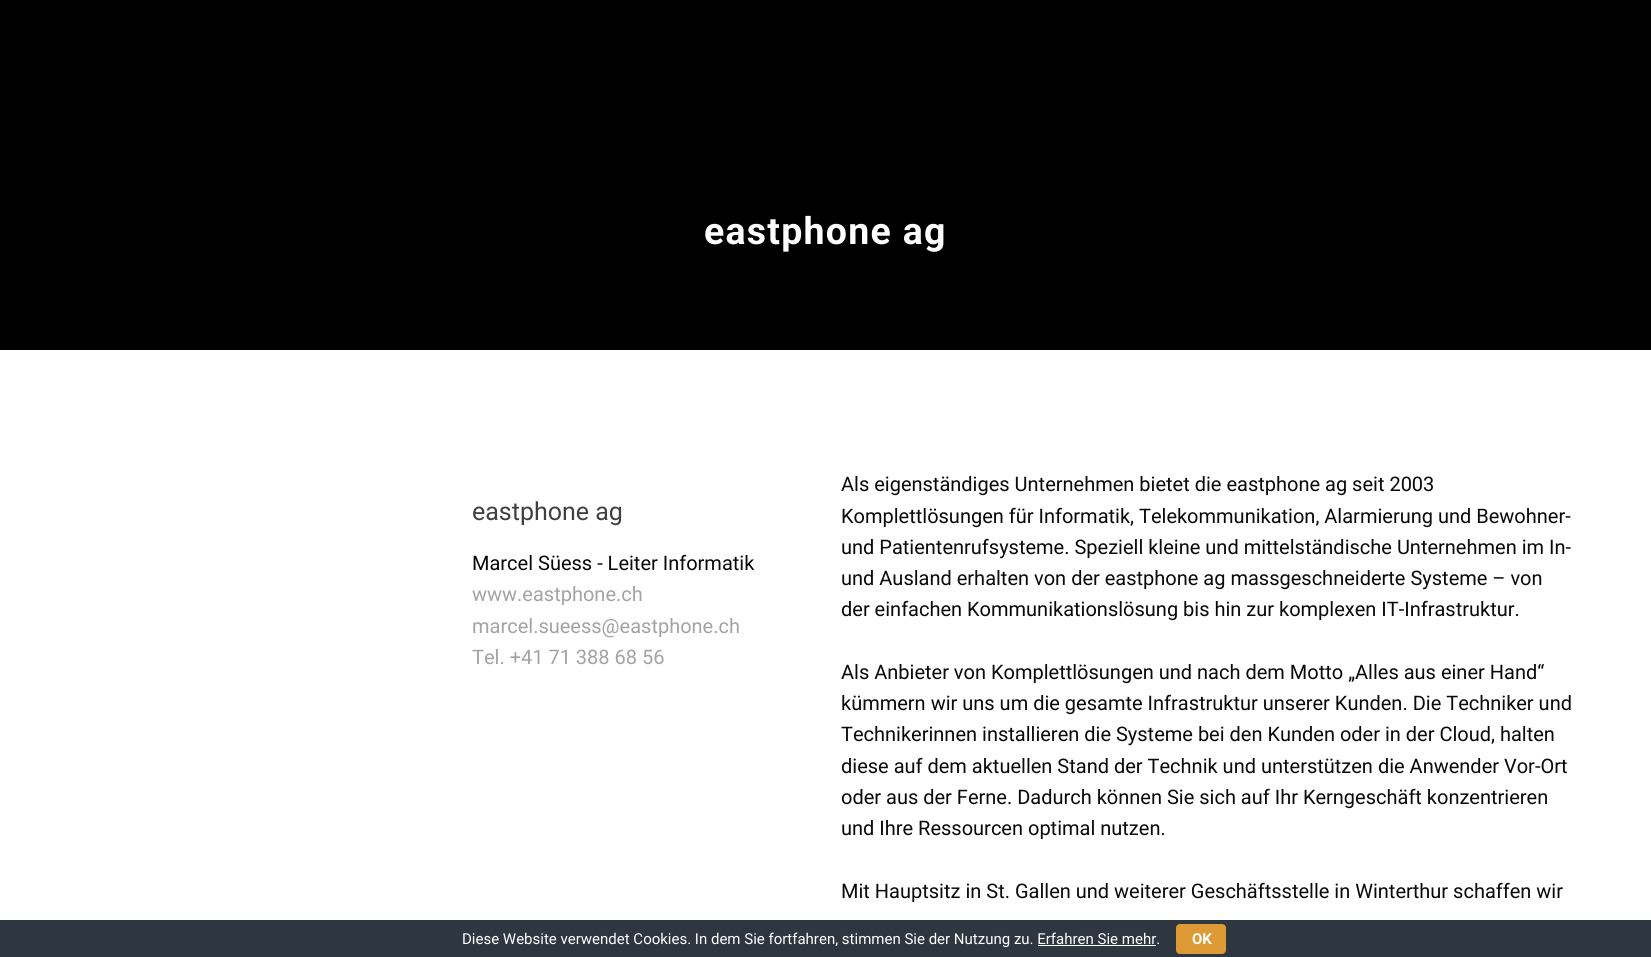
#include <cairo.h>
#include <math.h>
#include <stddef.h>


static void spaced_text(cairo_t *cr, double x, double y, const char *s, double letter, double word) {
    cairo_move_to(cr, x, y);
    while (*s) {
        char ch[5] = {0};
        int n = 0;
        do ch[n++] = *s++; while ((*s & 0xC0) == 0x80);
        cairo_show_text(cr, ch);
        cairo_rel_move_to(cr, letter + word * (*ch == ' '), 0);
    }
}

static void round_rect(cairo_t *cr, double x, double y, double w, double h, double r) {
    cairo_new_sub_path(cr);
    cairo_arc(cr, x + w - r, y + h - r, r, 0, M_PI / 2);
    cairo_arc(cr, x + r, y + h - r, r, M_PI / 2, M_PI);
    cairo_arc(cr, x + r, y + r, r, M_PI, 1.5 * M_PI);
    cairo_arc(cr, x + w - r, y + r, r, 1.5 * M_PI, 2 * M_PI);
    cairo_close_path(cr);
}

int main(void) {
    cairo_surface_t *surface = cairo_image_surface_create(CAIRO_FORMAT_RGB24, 1651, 957);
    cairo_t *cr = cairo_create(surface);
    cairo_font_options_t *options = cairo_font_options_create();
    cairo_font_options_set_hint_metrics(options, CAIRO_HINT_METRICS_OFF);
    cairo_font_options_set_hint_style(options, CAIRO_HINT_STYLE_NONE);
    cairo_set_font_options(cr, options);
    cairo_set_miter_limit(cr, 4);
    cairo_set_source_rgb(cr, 1, 1, 1);
    cairo_paint(cr);
    cairo_set_source_rgb(cr, 0, 0, 0);
    cairo_rectangle(cr, 0, 0, 1651, 350);
    cairo_fill(cr);
    cairo_select_font_face(cr, "Roboto", CAIRO_FONT_SLANT_NORMAL, CAIRO_FONT_WEIGHT_BOLD);
    cairo_set_font_size(cr, 37.5);
    cairo_set_source_rgb(cr, 1, 1, 1);
    spaced_text(cr, 704, 244, "eastphone ag", 1.25, 0);
    cairo_select_font_face(cr, "Roboto", CAIRO_FONT_SLANT_NORMAL, CAIRO_FONT_WEIGHT_NORMAL);
    cairo_set_font_size(cr, 25);
    cairo_set_source_rgb(cr, 0.251, 0.251, 0.251);
    cairo_move_to(cr, 472, 520);
    cairo_show_text(cr, "eastphone ag");
    cairo_set_font_size(cr, 20);
    cairo_set_source_rgb(cr, 0.039, 0.039, 0.039);
    cairo_move_to(cr, 472, 570);
    cairo_show_text(cr, "Marcel Süess - Leiter Informatik");
    cairo_set_source_rgb(cr, 0.639, 0.639, 0.639);
    cairo_move_to(cr, 472, 601);
    cairo_show_text(cr, "www.eastphone.ch");
    cairo_move_to(cr, 472, 633);
    cairo_show_text(cr, "marcel.sueess@eastphone.ch");
    cairo_move_to(cr, 472, 664);
    cairo_show_text(cr, "Tel. +41 71 388 68 56");
    cairo_set_source_rgb(cr, 0.039, 0.039, 0.039);
    cairo_move_to(cr, 841, 491);
    cairo_show_text(cr, "Als eigenständiges Unternehmen bietet die eastphone ag seit 2003");
    cairo_move_to(cr, 841, 523);
    cairo_show_text(cr, "Komplettlösungen für Informatik, Telekommunikation, Alarmierung und Bewohner-");
    cairo_move_to(cr, 841, 554);
    cairo_show_text(cr, "und Patientenrufsysteme. Speziell kleine und mittelständische Unternehmen im In-");
    cairo_move_to(cr, 841, 585);
    cairo_show_text(cr, "und Ausland erhalten von der eastphone ag massgeschneiderte Systeme – von");
    cairo_move_to(cr, 841, 616);
    cairo_show_text(cr, "der einfachen Kommunikationslösung bis hin zur komplexen IT-Infrastruktur.");
    cairo_move_to(cr, 841, 679);
    cairo_show_text(cr, "Als Anbieter von Komplettlösungen und nach dem Motto „Alles aus einer Hand“");
    cairo_move_to(cr, 841, 710);
    cairo_show_text(cr, "kümmern wir uns um die gesamte Infrastruktur unserer Kunden. Die Techniker und");
    cairo_move_to(cr, 841, 741);
    cairo_show_text(cr, "Technikerinnen installieren die Systeme bei den Kunden oder in der Cloud, halten");
    cairo_move_to(cr, 841, 773);
    cairo_show_text(cr, "diese auf dem aktuellen Stand der Technik und unterstützen die Anwender Vor-Ort");
    cairo_move_to(cr, 841, 804);
    cairo_show_text(cr, "oder aus der Ferne. Dadurch können Sie sich auf Ihr Kerngeschäft konzentrieren");
    cairo_move_to(cr, 841, 835);
    cairo_show_text(cr, "und Ihre Ressourcen optimal nutzen.");
    cairo_move_to(cr, 841, 898);
    cairo_show_text(cr, "Mit Hauptsitz in St. Gallen und weiterer Geschäftsstelle in Winterthur schaffen wir");
    cairo_set_source_rgb(cr, 0.18, 0.212, 0.247);
    cairo_rectangle(cr, 0, 920, 1651, 37);
    cairo_fill(cr);
    cairo_set_font_size(cr, 15);
    cairo_set_source_rgb(cr, 1, 1, 1);
    cairo_move_to(cr, 462, 944);
    cairo_show_text(cr, "Diese Website verwendet Cookies. In dem Sie fortfahren, stimmen Sie der Nutzung zu. Erfahren Sie mehr.");
    cairo_set_source_rgb(cr, 0.867, 0.6, 0.2);
    round_rect(cr, 1176, 924, 50, 30, 4);
    cairo_fill(cr);
    cairo_select_font_face(cr, "Roboto", CAIRO_FONT_SLANT_NORMAL, CAIRO_FONT_WEIGHT_BOLD);
    cairo_set_source_rgb(cr, 1, 1, 1);
    cairo_move_to(cr, 1192, 944);
    cairo_show_text(cr, "OK");
    cairo_rectangle(cr, 1038, 945, 118, 1);
    cairo_fill(cr);
    cairo_surface_write_to_png(surface, "page.png");
    cairo_font_options_destroy(options);
    cairo_destroy(cr);
    cairo_surface_destroy(surface);
    return 0;
}
